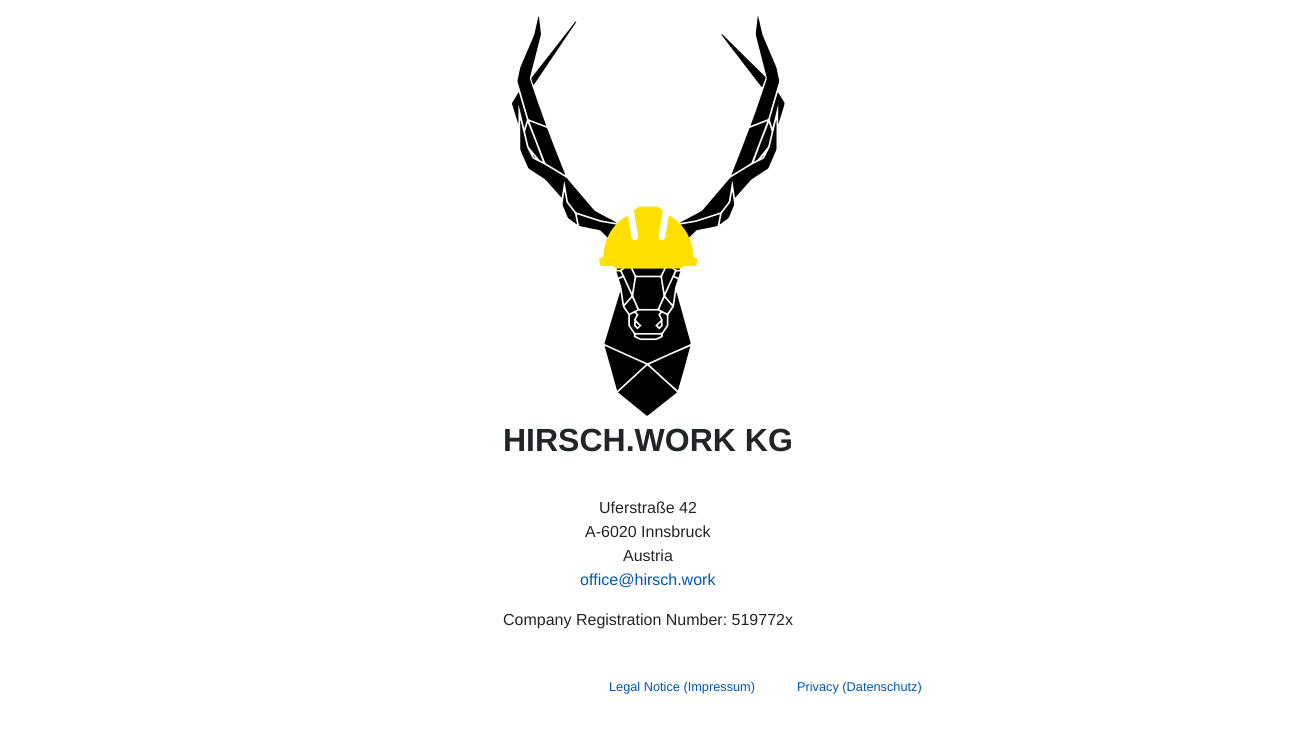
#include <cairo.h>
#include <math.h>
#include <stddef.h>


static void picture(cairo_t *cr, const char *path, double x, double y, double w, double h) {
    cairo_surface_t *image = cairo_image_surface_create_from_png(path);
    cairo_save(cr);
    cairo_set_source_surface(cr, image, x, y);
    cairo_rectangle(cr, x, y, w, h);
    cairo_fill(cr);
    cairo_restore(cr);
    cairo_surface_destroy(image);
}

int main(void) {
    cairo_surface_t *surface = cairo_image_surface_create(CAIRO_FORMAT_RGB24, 1296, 755);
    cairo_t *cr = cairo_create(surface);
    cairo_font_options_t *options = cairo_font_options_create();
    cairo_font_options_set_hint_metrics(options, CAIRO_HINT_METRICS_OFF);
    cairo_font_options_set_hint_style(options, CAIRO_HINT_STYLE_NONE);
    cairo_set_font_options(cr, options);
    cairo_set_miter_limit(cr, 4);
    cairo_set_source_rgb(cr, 1, 1, 1);
    cairo_paint(cr);
    picture(cr, "img1.png", 512, 16, 273, 400);
    cairo_select_font_face(cr, "Liberation Sans", CAIRO_FONT_SLANT_NORMAL, CAIRO_FONT_WEIGHT_BOLD);
    cairo_set_font_size(cr, 32);
    cairo_set_source_rgb(cr, 0.129, 0.145, 0.161);
    cairo_move_to(cr, 503, 451);
    cairo_show_text(cr, "HIRSCH.WORK KG");
    cairo_select_font_face(cr, "Liberation Sans", CAIRO_FONT_SLANT_NORMAL, CAIRO_FONT_WEIGHT_NORMAL);
    cairo_set_font_size(cr, 16);
    cairo_move_to(cr, 599, 513);
    cairo_show_text(cr, "Uferstraße 42");
    cairo_move_to(cr, 585, 537);
    cairo_show_text(cr, "A-6020 Innsbruck");
    cairo_move_to(cr, 623, 561);
    cairo_show_text(cr, "Austria");
    cairo_set_source_rgb(cr, 0, 0.337, 0.702);
    cairo_move_to(cr, 580, 585);
    cairo_show_text(cr, "office@hirsch.work");
    cairo_set_source_rgb(cr, 0.129, 0.145, 0.161);
    cairo_move_to(cr, 503, 625);
    cairo_show_text(cr, "Company Registration Number: 519772x");
    cairo_set_font_size(cr, 12.75);
    cairo_set_source_rgb(cr, 0, 0.337, 0.702);
    cairo_move_to(cr, 609, 691);
    cairo_show_text(cr, "Legal Notice (Impressum)");
    cairo_move_to(cr, 797, 691);
    cairo_show_text(cr, "Privacy (Datenschutz)");
    cairo_surface_write_to_png(surface, "page.png");
    cairo_font_options_destroy(options);
    cairo_destroy(cr);
    cairo_surface_destroy(surface);
    return 0;
}
